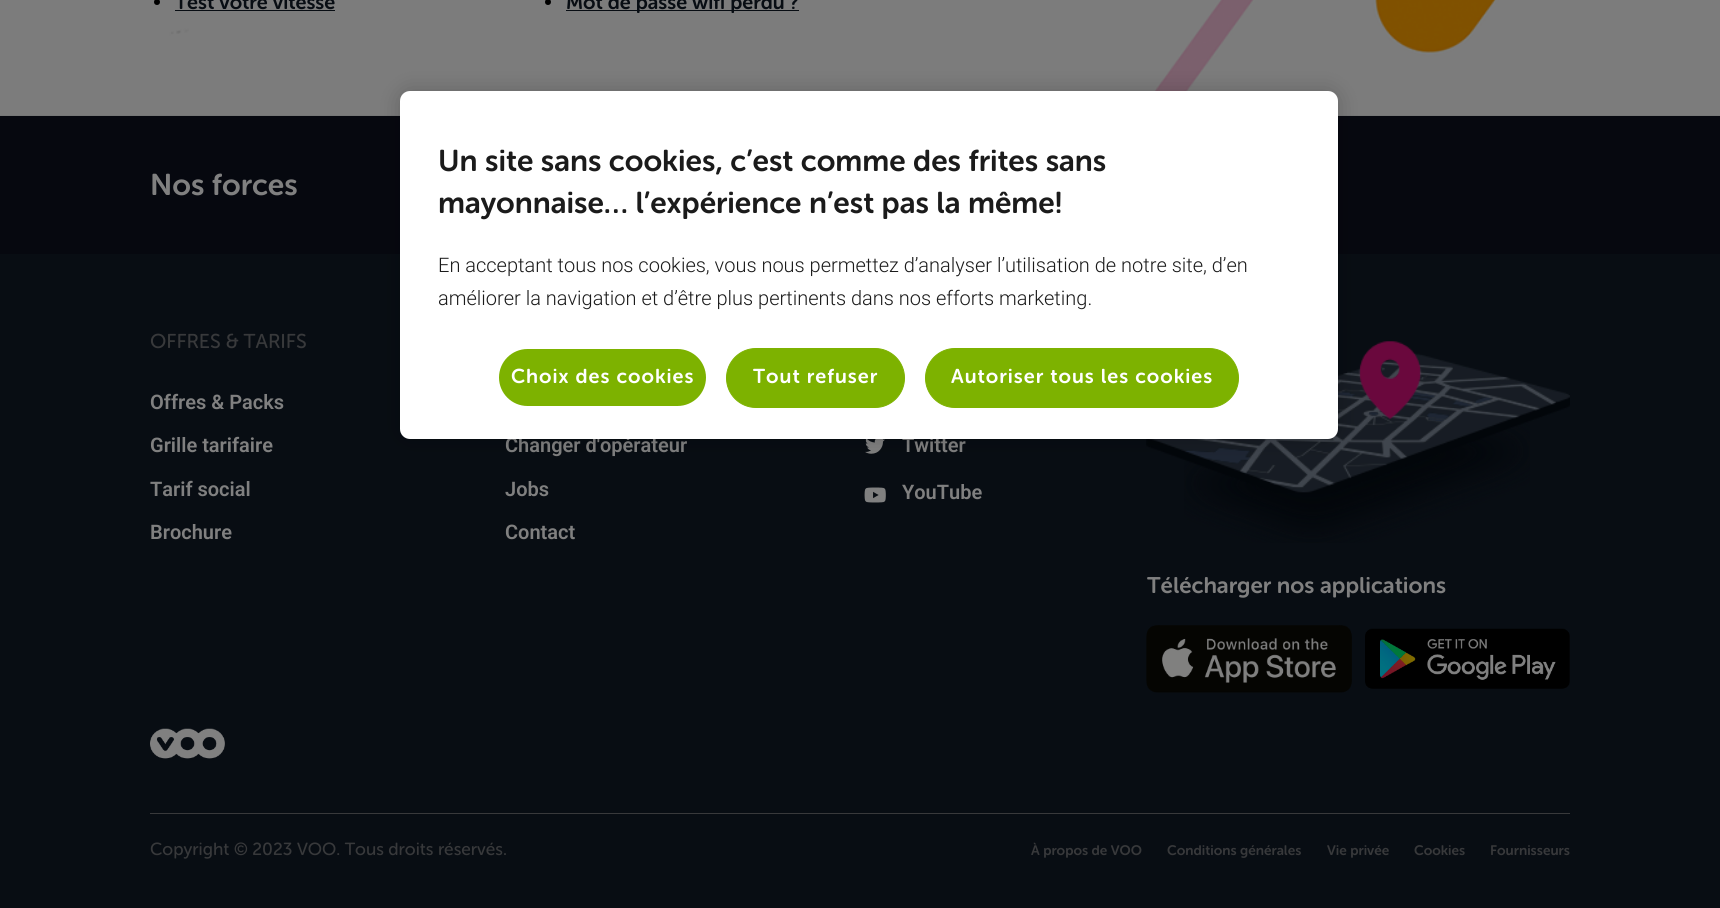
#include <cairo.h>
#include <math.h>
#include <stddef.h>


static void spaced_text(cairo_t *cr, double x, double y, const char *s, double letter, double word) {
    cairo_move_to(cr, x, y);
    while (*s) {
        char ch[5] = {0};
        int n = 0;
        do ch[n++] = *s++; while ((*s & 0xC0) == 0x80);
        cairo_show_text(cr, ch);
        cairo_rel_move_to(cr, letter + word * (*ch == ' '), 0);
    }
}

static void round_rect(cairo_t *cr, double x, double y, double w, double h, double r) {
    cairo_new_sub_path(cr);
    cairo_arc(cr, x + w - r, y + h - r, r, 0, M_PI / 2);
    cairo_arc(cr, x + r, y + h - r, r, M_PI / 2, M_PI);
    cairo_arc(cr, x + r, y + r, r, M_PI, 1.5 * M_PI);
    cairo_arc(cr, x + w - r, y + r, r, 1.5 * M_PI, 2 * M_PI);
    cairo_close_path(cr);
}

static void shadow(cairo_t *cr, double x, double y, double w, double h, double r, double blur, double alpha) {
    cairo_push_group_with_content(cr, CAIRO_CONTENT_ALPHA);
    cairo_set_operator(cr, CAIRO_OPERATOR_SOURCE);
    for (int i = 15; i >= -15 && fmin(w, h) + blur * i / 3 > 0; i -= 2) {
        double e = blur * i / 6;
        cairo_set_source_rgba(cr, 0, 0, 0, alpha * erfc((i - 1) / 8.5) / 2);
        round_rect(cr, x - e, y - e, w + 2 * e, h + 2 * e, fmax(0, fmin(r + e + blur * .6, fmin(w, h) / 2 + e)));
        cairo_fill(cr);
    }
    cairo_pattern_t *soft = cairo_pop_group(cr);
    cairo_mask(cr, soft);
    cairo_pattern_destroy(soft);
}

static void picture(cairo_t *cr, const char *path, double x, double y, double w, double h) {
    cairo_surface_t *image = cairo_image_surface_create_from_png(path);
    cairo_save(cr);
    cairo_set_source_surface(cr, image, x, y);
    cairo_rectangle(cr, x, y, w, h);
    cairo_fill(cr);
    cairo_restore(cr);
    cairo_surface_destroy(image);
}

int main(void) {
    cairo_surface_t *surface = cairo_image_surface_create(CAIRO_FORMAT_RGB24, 1720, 908);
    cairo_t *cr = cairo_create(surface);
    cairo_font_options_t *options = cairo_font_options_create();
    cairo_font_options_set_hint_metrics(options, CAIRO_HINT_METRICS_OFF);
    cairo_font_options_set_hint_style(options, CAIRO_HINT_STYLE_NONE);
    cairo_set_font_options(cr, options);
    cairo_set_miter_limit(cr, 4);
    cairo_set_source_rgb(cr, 0.035, 0.051, 0.078);
    cairo_paint(cr);
    picture(cr, "img1.png", 0, 0, 1720, 116);
    cairo_set_source_rgb(cr, 0, 0, 0);
    cairo_arc(cr, 157, 2, 3, 0, 2 * M_PI);
    cairo_fill(cr);
    cairo_select_font_face(cr, "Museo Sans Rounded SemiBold", CAIRO_FONT_SLANT_NORMAL, CAIRO_FONT_WEIGHT_NORMAL);
    cairo_set_font_size(cr, 20);
    cairo_set_source_rgb(cr, 0.035, 0.051, 0.078);
    cairo_move_to(cr, 175, 9);
    cairo_show_text(cr, "Test votre vitesse");
    cairo_rectangle(cr, 175, 10, 160, 1);
    cairo_fill(cr);
    cairo_set_source_rgb(cr, 0, 0, 0);
    cairo_arc(cr, 548, 2, 3, 0, 2 * M_PI);
    cairo_fill(cr);
    cairo_set_source_rgb(cr, 0.035, 0.051, 0.078);
    cairo_rectangle(cr, 566, 10, 233, 1);
    cairo_fill(cr);
    cairo_move_to(cr, 566, 9);
    cairo_show_text(cr, "Mot de passe wifi perdu ?");
    cairo_set_source_rgb(cr, 0.024, 0.035, 0.059);
    cairo_rectangle(cr, 0, 116, 1720, 138);
    cairo_fill(cr);
    cairo_set_font_size(cr, 30);
    cairo_set_source_rgb(cr, 0.502, 0.502, 0.502);
    cairo_move_to(cr, 150, 195);
    cairo_show_text(cr, "Nos forces");
    cairo_select_font_face(cr, "Museo Sans Rounded", CAIRO_FONT_SLANT_NORMAL, CAIRO_FONT_WEIGHT_NORMAL);
    cairo_set_font_size(cr, 20);
    cairo_set_source_rgb(cr, 0.22, 0.224, 0.231);
    cairo_move_to(cr, 150, 348);
    cairo_show_text(cr, "OFFRES & TARIFS");
    cairo_select_font_face(cr, "Roboto SemiBold", CAIRO_FONT_SLANT_NORMAL, CAIRO_FONT_WEIGHT_NORMAL);
    cairo_set_source_rgb(cr, 0.502, 0.502, 0.502);
    cairo_move_to(cr, 150, 409);
    cairo_show_text(cr, "Offres & Packs");
    cairo_move_to(cr, 150, 452);
    cairo_show_text(cr, "Grille tarifaire");
    cairo_move_to(cr, 150, 496);
    cairo_show_text(cr, "Tarif social");
    cairo_move_to(cr, 150, 539);
    cairo_show_text(cr, "Brochure");
    cairo_move_to(cr, 505, 452);
    cairo_show_text(cr, "Changer d'opérateur");
    cairo_move_to(cr, 505, 496);
    cairo_show_text(cr, "Jobs");
    cairo_move_to(cr, 505, 539);
    cairo_show_text(cr, "Contact");
    picture(cr, "img2.png", 865, 439, 20, 15);
    cairo_move_to(cr, 902, 452);
    cairo_show_text(cr, "Twitter");
    picture(cr, "img3.png", 864, 487, 22, 16);
    cairo_move_to(cr, 902, 499);
    cairo_show_text(cr, "YouTube");
    picture(cr, "img6.png", 1184, 419, 346, 124);
    picture(cr, "img5.png", 1146, 353, 424, 140);
    picture(cr, "img4.png", 1358, 341, 64, 78);
    cairo_select_font_face(cr, "Museo Sans Rounded SemiBold", CAIRO_FONT_SLANT_NORMAL, CAIRO_FONT_WEIGHT_NORMAL);
    cairo_set_font_size(cr, 22.5);
    cairo_move_to(cr, 1147, 593);
    cairo_show_text(cr, "Télécharger nos applications");
    picture(cr, "img7.png", 1146, 625, 206, 68);
    picture(cr, "img8.png", 1365, 628, 205, 61);
    picture(cr, "img9.png", 150, 728, 75, 31);
    cairo_set_source_rgb(cr, 0.22, 0.224, 0.231);
    cairo_rectangle(cr, 150, 813, 1420, 1);
    cairo_fill(cr);
    cairo_select_font_face(cr, "Museo Sans Rounded", CAIRO_FONT_SLANT_NORMAL, CAIRO_FONT_WEIGHT_NORMAL);
    cairo_set_font_size(cr, 17.5);
    cairo_move_to(cr, 150, 855);
    cairo_show_text(cr, "Copyright © 2023 VOO. Tous droits réservés.");
    cairo_select_font_face(cr, "Museo Sans Rounded SemiBold", CAIRO_FONT_SLANT_NORMAL, CAIRO_FONT_WEIGHT_NORMAL);
    cairo_set_font_size(cr, 13.75);
    cairo_move_to(cr, 1031, 855);
    cairo_show_text(cr, "À propos de VOO");
    cairo_move_to(cr, 1167, 855);
    cairo_show_text(cr, "Conditions générales");
    cairo_move_to(cr, 1327, 855);
    cairo_show_text(cr, "Vie privée");
    cairo_move_to(cr, 1414, 855);
    cairo_show_text(cr, "Cookies");
    cairo_move_to(cr, 1490, 855);
    cairo_show_text(cr, "Fournisseurs");
    cairo_set_source_rgb(cr, 0, 0, 0);
    shadow(cr, 400, 91, 938, 348, 10, 11, 0.2);
    cairo_set_source_rgb(cr, 1, 1, 1);
    round_rect(cr, 400, 91, 938, 348, 10);
    cairo_fill(cr);
    cairo_set_font_size(cr, 30);
    cairo_set_source_rgb(cr, 0.106, 0.106, 0.106);
    cairo_move_to(cr, 438, 171);
    cairo_show_text(cr, "Un site sans cookies, c’est comme des frites sans");
    cairo_move_to(cr, 438, 213);
    cairo_show_text(cr, "mayonnaise… l’expérience n’est pas la même!");
    cairo_select_font_face(cr, "Roboto Light", CAIRO_FONT_SLANT_NORMAL, CAIRO_FONT_WEIGHT_NORMAL);
    cairo_set_font_size(cr, 20);
    cairo_move_to(cr, 438, 272);
    cairo_show_text(cr, "En acceptant tous nos cookies, vous nous permettez d’analyser l’utilisation de notre site, d’en");
    cairo_move_to(cr, 438, 305);
    cairo_show_text(cr, "améliorer la navigation et d’être plus pertinents dans nos efforts marketing.");
    cairo_set_source_rgb(cr, 0.49, 0.698, 0);
    round_rect(cr, 499, 349, 207, 57, 28.5);
    cairo_fill(cr);
    cairo_select_font_face(cr, "Museo Sans Rounded SemiBold", CAIRO_FONT_SLANT_NORMAL, CAIRO_FONT_WEIGHT_NORMAL);
    cairo_set_source_rgb(cr, 1, 1, 1);
    spaced_text(cr, 511, 383, "Choix des cookies", 1, 0);
    cairo_set_source_rgb(cr, 0.49, 0.698, 0);
    round_rect(cr, 726.5, 348.5, 178, 59, 29.5);
    cairo_fill_preserve(cr);
    cairo_set_line_width(cr, 1);
    cairo_stroke(cr);
    cairo_set_source_rgb(cr, 1, 1, 1);
    spaced_text(cr, 753, 383, "Tout refuser", 1, 0);
    cairo_set_source_rgb(cr, 0.49, 0.698, 0);
    round_rect(cr, 925.5, 348.5, 313, 59, 29.5);
    cairo_fill_preserve(cr);
    cairo_stroke(cr);
    cairo_set_source_rgb(cr, 1, 1, 1);
    spaced_text(cr, 951, 383, "Autoriser tous les cookies", 1, 0);
    cairo_surface_write_to_png(surface, "page.png");
    cairo_font_options_destroy(options);
    cairo_destroy(cr);
    cairo_surface_destroy(surface);
    return 0;
}
